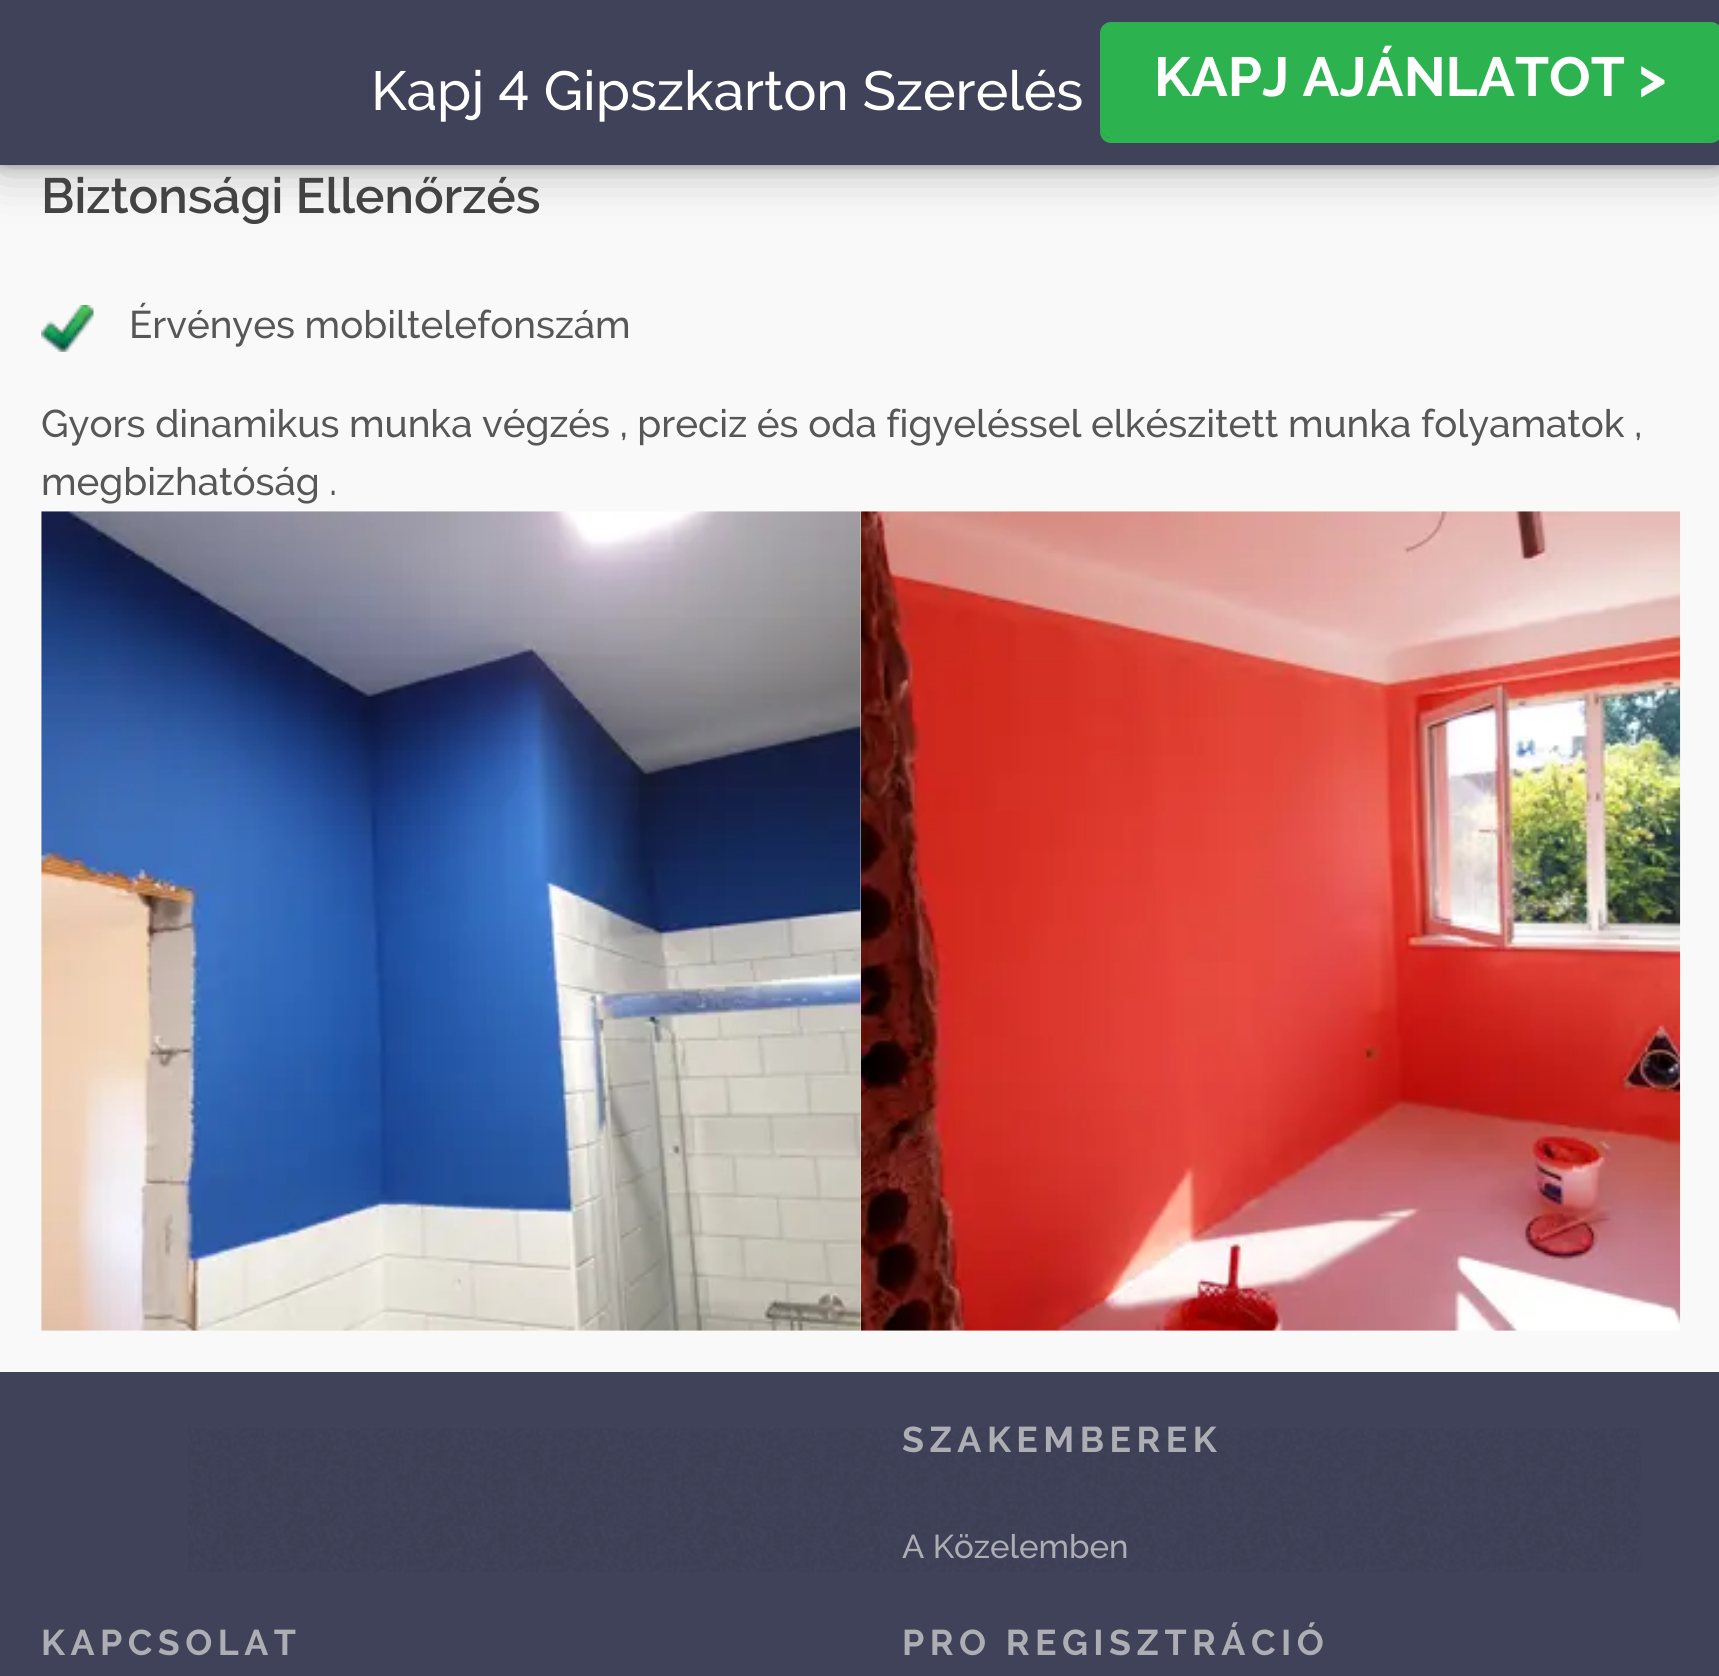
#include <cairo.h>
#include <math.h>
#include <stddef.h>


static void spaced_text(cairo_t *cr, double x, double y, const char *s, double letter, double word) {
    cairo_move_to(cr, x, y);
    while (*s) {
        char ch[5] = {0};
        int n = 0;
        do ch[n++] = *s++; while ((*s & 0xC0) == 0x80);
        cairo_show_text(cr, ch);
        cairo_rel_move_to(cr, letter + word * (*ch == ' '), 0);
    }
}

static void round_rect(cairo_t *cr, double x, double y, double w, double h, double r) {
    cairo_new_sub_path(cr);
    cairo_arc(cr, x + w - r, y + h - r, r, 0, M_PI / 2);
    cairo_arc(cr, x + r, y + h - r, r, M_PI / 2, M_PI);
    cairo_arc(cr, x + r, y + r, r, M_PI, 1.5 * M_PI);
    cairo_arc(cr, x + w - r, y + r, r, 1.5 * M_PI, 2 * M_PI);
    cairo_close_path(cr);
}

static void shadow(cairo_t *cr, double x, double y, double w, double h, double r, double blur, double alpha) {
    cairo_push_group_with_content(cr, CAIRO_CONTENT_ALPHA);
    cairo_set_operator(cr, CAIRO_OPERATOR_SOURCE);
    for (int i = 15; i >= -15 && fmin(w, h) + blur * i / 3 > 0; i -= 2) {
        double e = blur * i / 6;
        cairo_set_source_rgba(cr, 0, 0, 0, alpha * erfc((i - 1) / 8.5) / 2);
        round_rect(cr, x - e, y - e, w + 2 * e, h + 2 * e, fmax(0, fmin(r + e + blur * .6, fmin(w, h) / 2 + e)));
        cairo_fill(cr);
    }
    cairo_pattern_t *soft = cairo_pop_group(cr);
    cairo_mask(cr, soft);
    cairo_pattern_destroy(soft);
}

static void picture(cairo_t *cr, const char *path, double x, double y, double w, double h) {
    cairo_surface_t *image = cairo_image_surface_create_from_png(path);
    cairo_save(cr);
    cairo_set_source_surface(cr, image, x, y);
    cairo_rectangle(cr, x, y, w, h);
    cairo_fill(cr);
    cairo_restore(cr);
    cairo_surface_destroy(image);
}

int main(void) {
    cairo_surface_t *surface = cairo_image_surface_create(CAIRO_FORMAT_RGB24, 1719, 1676);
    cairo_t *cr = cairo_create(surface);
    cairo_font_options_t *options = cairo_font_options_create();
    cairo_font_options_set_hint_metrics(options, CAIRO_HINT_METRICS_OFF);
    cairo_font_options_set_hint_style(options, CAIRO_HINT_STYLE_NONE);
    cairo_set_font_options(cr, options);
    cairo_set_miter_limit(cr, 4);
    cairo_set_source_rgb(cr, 0.973, 0.973, 0.973);
    cairo_paint(cr);
    cairo_set_source_rgb(cr, 0, 0, 0);
    shadow(cr, 0, 0, 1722, 165, 0, 27.5, 0.3);
    shadow(cr, 0, 0, 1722, 165, 0, 7, 0.3);
    cairo_set_source_rgb(cr, 0.251, 0.259, 0.349);
    cairo_rectangle(cr, 0, 0, 1719, 165);
    cairo_fill(cr);
    cairo_select_font_face(cr, "Raleway Medium", CAIRO_FONT_SLANT_NORMAL, CAIRO_FONT_WEIGHT_NORMAL);
    cairo_set_font_size(cr, 55);
    cairo_set_source_rgb(cr, 1, 1, 1);
    cairo_move_to(cr, 371, 110);
    cairo_show_text(cr, "Kapj 4 Gipszkarton Szerelés");
    cairo_set_source_rgb(cr, 0.173, 0.702, 0.31);
    cairo_new_path(cr);
    cairo_move_to(cr, 1100, 126);
    cairo_line_to(cr, 1100, 132);
    cairo_curve_to(cr, 1100, 138, 1105, 143, 1111, 143);
    cairo_line_to(cr, 1711, 143);
    cairo_curve_to(cr, 1717, 143, 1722, 138, 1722, 132);
    cairo_line_to(cr, 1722, 39);
    cairo_line_to(cr, 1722, 36);
    cairo_line_to(cr, 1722, 126);
    cairo_curve_to(cr, 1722, 133, 1717, 138, 1710, 138);
    cairo_line_to(cr, 1111, 138);
    cairo_curve_to(cr, 1105, 138, 1100, 133, 1100, 126);
    cairo_close_path(cr);
    cairo_fill(cr);
    round_rect(cr, 1100, 22, 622, 116, 11);
    cairo_fill(cr);
    cairo_select_font_face(cr, "Raleway", CAIRO_FONT_SLANT_NORMAL, CAIRO_FONT_WEIGHT_BOLD);
    cairo_set_source_rgb(cr, 1, 1, 1);
    cairo_move_to(cr, 1154, 96);
    cairo_show_text(cr, "KAPJ AJÁNLATOT >");
    cairo_select_font_face(cr, "Raleway SemiBold", CAIRO_FONT_SLANT_NORMAL, CAIRO_FONT_WEIGHT_NORMAL);
    cairo_set_font_size(cr, 49.5);
    cairo_set_source_rgb(cr, 0.263, 0.263, 0.263);
    cairo_move_to(cr, 41, 213);
    cairo_show_text(cr, "Biztonsági Ellenőrzés");
    picture(cr, "img1.png", 41, 305, 53, 47);
    cairo_select_font_face(cr, "Raleway Medium", CAIRO_FONT_SLANT_NORMAL, CAIRO_FONT_WEIGHT_NORMAL);
    cairo_set_font_size(cr, 38.5);
    cairo_set_source_rgb(cr, 0.341, 0.341, 0.341);
    cairo_move_to(cr, 129, 338);
    cairo_show_text(cr, "Érvényes mobiltelefonszám");
    cairo_move_to(cr, 41, 437);
    cairo_show_text(cr, "Gyors dinamikus munka végzés , preciz és oda figyeléssel elkészitett munka folyamatok ,");
    cairo_move_to(cr, 41, 495);
    cairo_show_text(cr, "megbizhatóság .");
    picture(cr, "img2.png", 41, 511, 820, 820);
    picture(cr, "img3.png", 860, 511, 821, 820);
    cairo_set_source_rgb(cr, 0.251, 0.259, 0.349);
    cairo_rectangle(cr, 0, 1372, 1719, 304);
    cairo_fill(cr);
    picture(cr, "img4.png", 188, 1428, 1453, 144);
    cairo_select_font_face(cr, "Raleway", CAIRO_FONT_SLANT_NORMAL, CAIRO_FONT_WEIGHT_BOLD);
    cairo_set_font_size(cr, 35.75);
    cairo_set_source_rgb(cr, 0.678, 0.682, 0.702);
    spaced_text(cr, 902, 1452, "SZAKEMBEREK", 5.5, 0);
    cairo_select_font_face(cr, "Raleway Medium", CAIRO_FONT_SLANT_NORMAL, CAIRO_FONT_WEIGHT_NORMAL);
    cairo_set_font_size(cr, 33);
    cairo_move_to(cr, 902, 1558);
    cairo_show_text(cr, "A Közelemben");
    cairo_select_font_face(cr, "Raleway", CAIRO_FONT_SLANT_NORMAL, CAIRO_FONT_WEIGHT_BOLD);
    cairo_set_font_size(cr, 35.75);
    spaced_text(cr, 41, 1655, "KAPCSOLAT", 5.5, 0);
    spaced_text(cr, 902, 1655, "PRO REGISZTRÁCIÓ", 5.5, 0);
    cairo_surface_write_to_png(surface, "page.png");
    cairo_font_options_destroy(options);
    cairo_destroy(cr);
    cairo_surface_destroy(surface);
    return 0;
}
